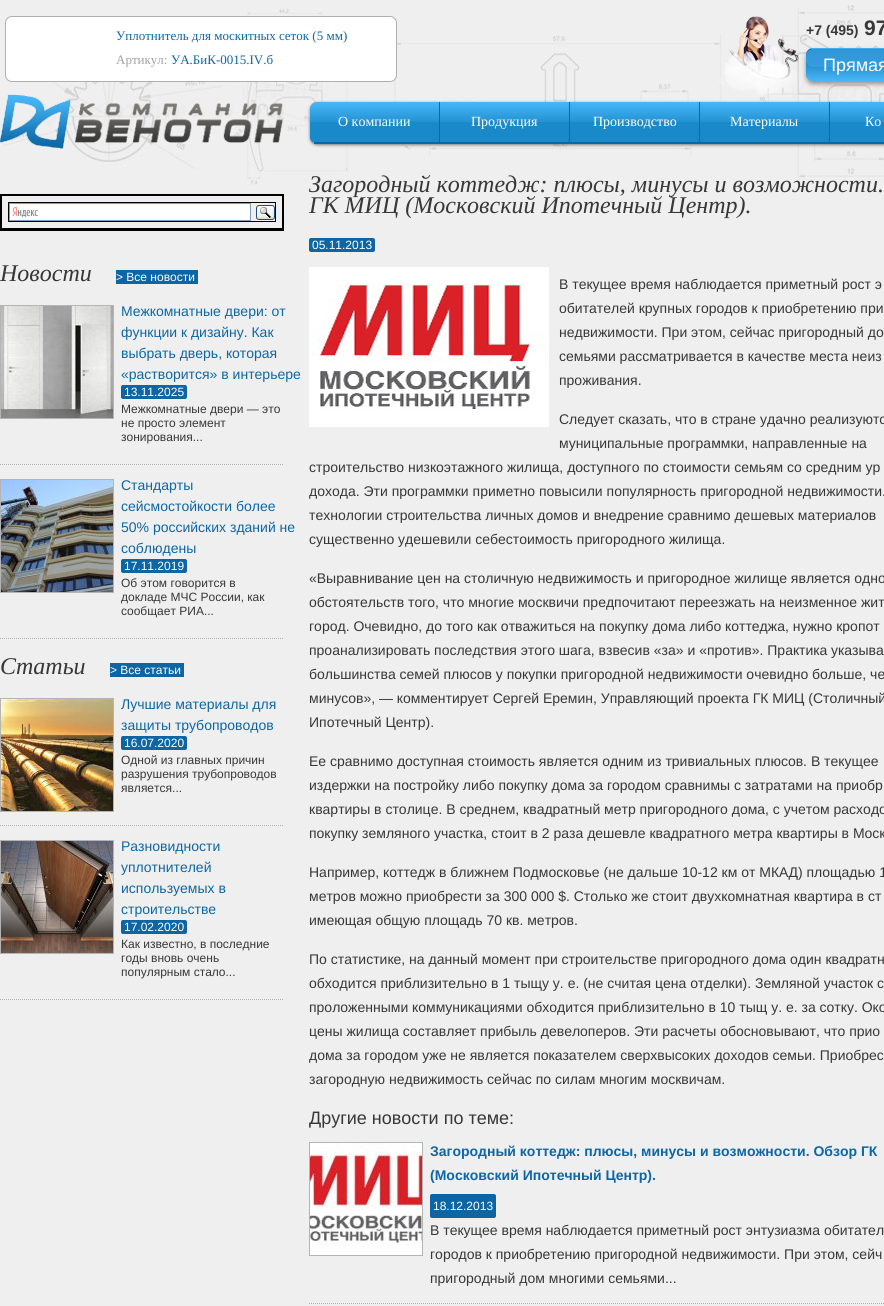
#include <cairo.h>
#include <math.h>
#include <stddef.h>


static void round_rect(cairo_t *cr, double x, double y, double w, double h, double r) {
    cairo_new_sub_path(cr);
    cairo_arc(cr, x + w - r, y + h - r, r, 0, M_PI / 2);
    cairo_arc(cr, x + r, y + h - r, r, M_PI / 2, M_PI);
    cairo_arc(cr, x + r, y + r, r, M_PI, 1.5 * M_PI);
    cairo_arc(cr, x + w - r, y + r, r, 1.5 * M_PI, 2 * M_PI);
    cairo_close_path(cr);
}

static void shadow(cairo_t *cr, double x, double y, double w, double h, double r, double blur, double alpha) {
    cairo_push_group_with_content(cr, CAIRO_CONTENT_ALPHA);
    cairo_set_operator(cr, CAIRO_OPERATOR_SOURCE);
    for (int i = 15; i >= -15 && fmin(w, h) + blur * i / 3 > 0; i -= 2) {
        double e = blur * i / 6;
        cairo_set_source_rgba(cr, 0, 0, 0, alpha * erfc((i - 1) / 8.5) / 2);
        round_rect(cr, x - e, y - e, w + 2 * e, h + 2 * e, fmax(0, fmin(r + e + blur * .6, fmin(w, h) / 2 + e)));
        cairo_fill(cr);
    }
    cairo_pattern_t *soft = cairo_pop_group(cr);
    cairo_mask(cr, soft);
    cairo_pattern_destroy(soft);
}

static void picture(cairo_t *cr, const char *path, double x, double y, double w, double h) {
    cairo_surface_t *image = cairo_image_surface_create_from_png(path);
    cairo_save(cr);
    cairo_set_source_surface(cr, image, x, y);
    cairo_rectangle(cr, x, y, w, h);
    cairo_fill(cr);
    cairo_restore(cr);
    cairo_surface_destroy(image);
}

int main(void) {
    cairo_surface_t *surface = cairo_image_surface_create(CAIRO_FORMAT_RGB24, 884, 1306);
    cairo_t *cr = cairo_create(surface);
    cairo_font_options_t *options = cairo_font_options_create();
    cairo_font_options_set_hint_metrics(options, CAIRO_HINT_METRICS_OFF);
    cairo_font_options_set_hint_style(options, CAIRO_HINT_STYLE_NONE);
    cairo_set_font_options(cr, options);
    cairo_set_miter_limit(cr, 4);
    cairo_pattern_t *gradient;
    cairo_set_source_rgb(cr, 0.937, 0.937, 0.937);
    cairo_paint(cr);
    picture(cr, "img1.png", 3, 4, 881, 181);
    cairo_set_source_rgb(cr, 1, 1, 1);
    round_rect(cr, 5.5, 16.5, 391, 65, 6.5);
    cairo_fill_preserve(cr);
    cairo_set_source_rgb(cr, 0.682, 0.682, 0.682);
    cairo_set_line_width(cr, 1);
    cairo_stroke(cr);
    cairo_select_font_face(cr, "Liberation Serif", CAIRO_FONT_SLANT_NORMAL, CAIRO_FONT_WEIGHT_NORMAL);
    cairo_set_font_size(cr, 13);
    cairo_set_source_rgb(cr, 0.051, 0.4, 0.639);
    cairo_move_to(cr, 116, 40);
    cairo_show_text(cr, "Уплотнитель для москитных сеток (5 мм)");
    cairo_set_source_rgb(cr, 0.631, 0.631, 0.631);
    cairo_move_to(cr, 116, 64);
    cairo_show_text(cr, "Артикул:");
    cairo_set_source_rgb(cr, 0.051, 0.4, 0.639);
    cairo_move_to(cr, 171, 64);
    cairo_show_text(cr, "УА.БиК-0015.IV.б");
    picture(cr, "img2.png", 719, 16, 80, 79);
    cairo_select_font_face(cr, "Liberation Sans", CAIRO_FONT_SLANT_NORMAL, CAIRO_FONT_WEIGHT_BOLD);
    cairo_set_font_size(cr, 14);
    cairo_set_source_rgb(cr, 0.216, 0.216, 0.216);
    cairo_move_to(cr, 806, 35);
    cairo_show_text(cr, "+7 (495)");
    cairo_set_font_size(cr, 21);
    cairo_move_to(cr, 864, 35);
    cairo_show_text(cr, "97");
    cairo_set_source_rgb(cr, 0, 0, 0);
    shadow(cr, 806, 51, 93, 33, 7, 2.5, 0.4);
    cairo_save(cr);
    round_rect(cr, 806, 48, 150, 33, 7);
    cairo_clip(cr);
    gradient = cairo_pattern_create_linear(881, 49, 881, 81);
    cairo_pattern_add_color_stop_rgba(gradient, 0, 0.051, 0.4, 0.639, 1);
    cairo_pattern_add_color_stop_rgba(gradient, 1, 0.275, 0.718, 0.973, 1);
    cairo_set_source(cr, gradient);
    cairo_pattern_destroy(gradient);
    cairo_new_path(cr);
    cairo_move_to(cr, 806, 49);
    cairo_line_to(cr, 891, 49);
    cairo_line_to(cr, 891, 74);
    cairo_curve_to(cr, 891, 78, 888, 81, 884, 81);
    cairo_line_to(cr, 813, 81);
    cairo_curve_to(cr, 809, 81, 806, 78, 806, 74);
    cairo_close_path(cr);
    cairo_fill(cr);
    cairo_restore(cr);
    cairo_set_source_rgb(cr, 0.243, 0.686, 0.937);
    cairo_rectangle(cr, 810, 48, 74, 1);
    cairo_fill(cr);
    gradient = cairo_pattern_create_linear(881, 49, 881, 67);
    cairo_pattern_add_color_stop_rgba(gradient, 0, 0.271, 0.714, 0.969, 0.6);
    cairo_pattern_add_color_stop_rgba(gradient, 1, 0.227, 0.651, 0.906, 0.6);
    cairo_set_source(cr, gradient);
    cairo_pattern_destroy(gradient);
    round_rect(cr, 806, 49, 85, 18, 7);
    cairo_fill(cr);
    cairo_select_font_face(cr, "Liberation Sans", CAIRO_FONT_SLANT_NORMAL, CAIRO_FONT_WEIGHT_NORMAL);
    cairo_set_font_size(cr, 18);
    cairo_set_source_rgb(cr, 1, 1, 1);
    cairo_move_to(cr, 823, 71);
    cairo_show_text(cr, "Прямая");
    picture(cr, "img3.png", 0, 94, 284, 55);
    cairo_set_source_rgb(cr, 0, 0, 0);
    shadow(cr, 310, 103, 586, 42, 7, 1.5, 0.5);
    cairo_save(cr);
    round_rect(cr, 310, 102, 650, 42, 7);
    cairo_clip(cr);
    gradient = cairo_pattern_create_linear(635, 102, 635, 142);
    cairo_pattern_add_color_stop_rgba(gradient, 0, 0.275, 0.718, 0.973, 1);
    cairo_pattern_add_color_stop_rgba(gradient, 0.49, 0.141, 0.576, 0.827, 1);
    cairo_pattern_add_color_stop_rgba(gradient, 0.5, 0.102, 0.537, 0.788, 1);
    cairo_pattern_add_color_stop_rgba(gradient, 1, 0.102, 0.537, 0.788, 1);
    cairo_set_source(cr, gradient);
    cairo_pattern_destroy(gradient);
    cairo_new_path(cr);
    cairo_move_to(cr, 317, 102);
    cairo_line_to(cr, 884, 102);
    cairo_curve_to(cr, 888, 102, 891, 105, 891, 109);
    cairo_line_to(cr, 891, 142);
    cairo_line_to(cr, 310, 142);
    cairo_line_to(cr, 310, 109);
    cairo_curve_to(cr, 310, 105, 313, 102, 317, 102);
    cairo_close_path(cr);
    cairo_fill(cr);
    gradient = cairo_pattern_create_linear(635, 142, 635, 182);
    cairo_pattern_add_color_stop_rgba(gradient, 0, 0.275, 0.718, 0.973, 1);
    cairo_pattern_add_color_stop_rgba(gradient, 0.49, 0.141, 0.576, 0.827, 1);
    cairo_pattern_add_color_stop_rgba(gradient, 0.5, 0.102, 0.537, 0.788, 1);
    cairo_pattern_add_color_stop_rgba(gradient, 1, 0.102, 0.537, 0.788, 1);
    cairo_set_source(cr, gradient);
    cairo_pattern_destroy(gradient);
    cairo_rectangle(cr, 310, 142, 4, 2);
    cairo_fill(cr);
    cairo_restore(cr);
    cairo_set_source_rgb(cr, 0.051, 0.4, 0.639);
    cairo_rectangle(cr, 314, 142, 570, 2);
    cairo_fill(cr);
    cairo_rectangle(cr, 439, 102, 1, 42);
    cairo_fill(cr);
    cairo_select_font_face(cr, "Liberation Serif", CAIRO_FONT_SLANT_NORMAL, CAIRO_FONT_WEIGHT_NORMAL);
    cairo_set_font_size(cr, 14);
    cairo_set_source_rgb(cr, 1, 1, 1);
    cairo_move_to(cr, 338, 126);
    cairo_show_text(cr, "О компании");
    cairo_set_source_rgb(cr, 0.051, 0.4, 0.639);
    cairo_rectangle(cr, 569, 102, 1, 42);
    cairo_fill(cr);
    cairo_set_source_rgb(cr, 1, 1, 1);
    cairo_move_to(cr, 471, 126);
    cairo_show_text(cr, "Продукция");
    cairo_set_source_rgb(cr, 0.051, 0.4, 0.639);
    cairo_rectangle(cr, 699, 102, 1, 42);
    cairo_fill(cr);
    cairo_set_source_rgb(cr, 1, 1, 1);
    cairo_move_to(cr, 593, 126);
    cairo_show_text(cr, "Производство");
    cairo_set_source_rgb(cr, 0.051, 0.4, 0.639);
    cairo_rectangle(cr, 829, 102, 1, 42);
    cairo_fill(cr);
    cairo_set_source_rgb(cr, 1, 1, 1);
    cairo_move_to(cr, 730, 126);
    cairo_show_text(cr, "Материалы");
    cairo_move_to(cr, 865, 126);
    cairo_show_text(cr, "Ко");
    cairo_set_source_rgb(cr, 0, 0, 0);
    cairo_rectangle(cr, 0, 194, 284, 1);
    cairo_fill(cr);
    cairo_rectangle(cr, 283, 194, 1, 37);
    cairo_fill(cr);
    cairo_rectangle(cr, 0, 230, 284, 1);
    cairo_fill(cr);
    cairo_rectangle(cr, 0, 194, 1, 37);
    cairo_fill(cr);
    cairo_rectangle(cr, 1, 195, 282, 1);
    cairo_fill(cr);
    cairo_rectangle(cr, 282, 195, 1, 35);
    cairo_fill(cr);
    cairo_rectangle(cr, 1, 229, 282, 1);
    cairo_fill(cr);
    cairo_rectangle(cr, 1, 195, 1, 35);
    cairo_fill(cr);
    cairo_rectangle(cr, 8, 202, 268, 1);
    cairo_fill(cr);
    cairo_rectangle(cr, 275, 202, 1, 20);
    cairo_fill(cr);
    cairo_rectangle(cr, 8, 221, 268, 1);
    cairo_fill(cr);
    cairo_rectangle(cr, 8, 202, 1, 20);
    cairo_fill(cr);
    cairo_set_source_rgb(cr, 1, 1, 1);
    cairo_rectangle(cr, 10, 204, 240, 16);
    cairo_fill(cr);
    picture(cr, "img4.png", 12, 207, 26, 11);
    cairo_rectangle(cr, 9.5, 203.5, 241, 17);
    cairo_set_source_rgb(cr, 0.498, 0.616, 0.725);
    cairo_stroke(cr);
    picture(cr, "img5.png", 256, 205, 19, 15);
    cairo_set_source_rgb(cr, 0, 0, 0);
    cairo_rectangle(cr, 1, 228, 282, 1);
    cairo_fill(cr);
    cairo_select_font_face(cr, "Liberation Serif", CAIRO_FONT_SLANT_ITALIC, CAIRO_FONT_WEIGHT_NORMAL);
    cairo_set_font_size(cr, 24);
    cairo_set_source_rgb(cr, 0.216, 0.216, 0.216);
    cairo_move_to(cr, 0, 281);
    cairo_show_text(cr, "Новости");
    cairo_set_source_rgb(cr, 0.051, 0.4, 0.639);
    cairo_rectangle(cr, 116, 270, 82, 14);
    cairo_fill(cr);
    cairo_select_font_face(cr, "Liberation Sans", CAIRO_FONT_SLANT_NORMAL, CAIRO_FONT_WEIGHT_NORMAL);
    cairo_set_font_size(cr, 12);
    cairo_set_source_rgb(cr, 1, 1, 1);
    cairo_move_to(cr, 116, 281);
    cairo_show_text(cr, "> Все новости");
    cairo_new_path(cr);
    cairo_move_to(cr, 0, 464.5);
    cairo_line_to(cr, 284, 464.5);
    cairo_set_source_rgb(cr, 0.686, 0.686, 0.686);
    cairo_set_dash(cr, (double[]){1, 1}, 2, 0);
    cairo_stroke(cr);
    cairo_rectangle(cr, 0.5, 305.5, 113, 113);
    cairo_set_source_rgb(cr, 0.706, 0.706, 0.706);
    cairo_set_dash(cr, NULL, 0, 0);
    cairo_stroke(cr);
    picture(cr, "img6.png", 1, 306, 112, 112);
    cairo_set_font_size(cr, 14);
    cairo_set_source_rgb(cr, 0.051, 0.4, 0.639);
    cairo_move_to(cr, 121, 316);
    cairo_show_text(cr, "Межкомнатные двери: от");
    cairo_move_to(cr, 121, 337);
    cairo_show_text(cr, "функции к дизайну. Как");
    cairo_move_to(cr, 121, 358);
    cairo_show_text(cr, "выбрать дверь, которая");
    cairo_move_to(cr, 121, 379);
    cairo_show_text(cr, "«растворится» в интерьере");
    round_rect(cr, 121, 385, 66, 14, 2);
    cairo_fill(cr);
    cairo_set_font_size(cr, 12);
    cairo_set_source_rgb(cr, 1, 1, 1);
    cairo_move_to(cr, 124, 396);
    cairo_show_text(cr, "13.11.2025");
    cairo_set_source_rgb(cr, 0.216, 0.216, 0.216);
    cairo_move_to(cr, 121, 413);
    cairo_show_text(cr, "Межкомнатные двери — это");
    cairo_move_to(cr, 121, 427);
    cairo_show_text(cr, "не просто элемент");
    cairo_move_to(cr, 121, 441);
    cairo_show_text(cr, "зонирования...");
    cairo_new_path(cr);
    cairo_move_to(cr, 0, 638.5);
    cairo_line_to(cr, 284, 638.5);
    cairo_set_source_rgb(cr, 0.686, 0.686, 0.686);
    cairo_set_dash(cr, (double[]){1, 1}, 2, 0);
    cairo_stroke(cr);
    cairo_rectangle(cr, 0.5, 479.5, 113, 113);
    cairo_set_source_rgb(cr, 0.706, 0.706, 0.706);
    cairo_set_dash(cr, NULL, 0, 0);
    cairo_stroke(cr);
    picture(cr, "img7.png", 1, 480, 112, 112);
    cairo_set_font_size(cr, 14);
    cairo_set_source_rgb(cr, 0.051, 0.4, 0.639);
    cairo_move_to(cr, 121, 490);
    cairo_show_text(cr, "Стандарты");
    cairo_move_to(cr, 121, 511);
    cairo_show_text(cr, "сейсмостойкости более");
    cairo_move_to(cr, 121, 532);
    cairo_show_text(cr, "50% российских зданий не");
    cairo_move_to(cr, 121, 553);
    cairo_show_text(cr, "соблюдены");
    round_rect(cr, 121, 559, 66, 14, 2);
    cairo_fill(cr);
    cairo_set_font_size(cr, 12);
    cairo_set_source_rgb(cr, 1, 1, 1);
    cairo_move_to(cr, 124, 570);
    cairo_show_text(cr, "17.11.2019");
    cairo_set_source_rgb(cr, 0.216, 0.216, 0.216);
    cairo_move_to(cr, 121, 587);
    cairo_show_text(cr, "Об этом говорится в");
    cairo_move_to(cr, 121, 601);
    cairo_show_text(cr, "докладе МЧС России, как");
    cairo_move_to(cr, 121, 615);
    cairo_show_text(cr, "сообщает РИА...");
    cairo_select_font_face(cr, "Liberation Serif", CAIRO_FONT_SLANT_ITALIC, CAIRO_FONT_WEIGHT_NORMAL);
    cairo_set_font_size(cr, 24);
    cairo_move_to(cr, 0, 674);
    cairo_show_text(cr, "Статьи");
    cairo_set_source_rgb(cr, 0.051, 0.4, 0.639);
    cairo_rectangle(cr, 110, 663, 74, 14);
    cairo_fill(cr);
    cairo_select_font_face(cr, "Liberation Sans", CAIRO_FONT_SLANT_NORMAL, CAIRO_FONT_WEIGHT_NORMAL);
    cairo_set_font_size(cr, 12);
    cairo_set_source_rgb(cr, 1, 1, 1);
    cairo_move_to(cr, 110, 674);
    cairo_show_text(cr, "> Все статьи");
    cairo_new_path(cr);
    cairo_move_to(cr, 0, 825.5);
    cairo_line_to(cr, 284, 825.5);
    cairo_set_source_rgb(cr, 0.686, 0.686, 0.686);
    cairo_set_dash(cr, (double[]){1, 1}, 2, 0);
    cairo_stroke(cr);
    cairo_rectangle(cr, 0.5, 698.5, 113, 113);
    cairo_set_source_rgb(cr, 0.706, 0.706, 0.706);
    cairo_set_dash(cr, NULL, 0, 0);
    cairo_stroke(cr);
    picture(cr, "img8.png", 1, 699, 112, 112);
    cairo_set_font_size(cr, 14);
    cairo_set_source_rgb(cr, 0.051, 0.4, 0.639);
    cairo_move_to(cr, 121, 709);
    cairo_show_text(cr, "Лучшие материалы для");
    cairo_move_to(cr, 121, 730);
    cairo_show_text(cr, "защиты трубопроводов");
    round_rect(cr, 121, 736, 66, 14, 2);
    cairo_fill(cr);
    cairo_set_font_size(cr, 12);
    cairo_set_source_rgb(cr, 1, 1, 1);
    cairo_move_to(cr, 124, 747);
    cairo_show_text(cr, "16.07.2020");
    cairo_set_source_rgb(cr, 0.216, 0.216, 0.216);
    cairo_move_to(cr, 121, 764);
    cairo_show_text(cr, "Одной из главных причин");
    cairo_move_to(cr, 121, 778);
    cairo_show_text(cr, "разрушения трубопроводов");
    cairo_move_to(cr, 121, 792);
    cairo_show_text(cr, "является...");
    cairo_new_path(cr);
    cairo_move_to(cr, 0, 999.5);
    cairo_line_to(cr, 284, 999.5);
    cairo_set_source_rgb(cr, 0.686, 0.686, 0.686);
    cairo_set_dash(cr, (double[]){1, 1}, 2, 0);
    cairo_stroke(cr);
    cairo_rectangle(cr, 0.5, 840.5, 113, 113);
    cairo_set_source_rgb(cr, 0.706, 0.706, 0.706);
    cairo_set_dash(cr, NULL, 0, 0);
    cairo_stroke(cr);
    picture(cr, "img9.png", 1, 841, 112, 112);
    cairo_set_font_size(cr, 14);
    cairo_set_source_rgb(cr, 0.051, 0.4, 0.639);
    cairo_move_to(cr, 121, 851);
    cairo_show_text(cr, "Разновидности");
    cairo_move_to(cr, 121, 872);
    cairo_show_text(cr, "уплотнителей");
    cairo_move_to(cr, 121, 893);
    cairo_show_text(cr, "используемых в");
    cairo_move_to(cr, 121, 914);
    cairo_show_text(cr, "строительстве");
    round_rect(cr, 121, 920, 66, 14, 2);
    cairo_fill(cr);
    cairo_set_font_size(cr, 12);
    cairo_set_source_rgb(cr, 1, 1, 1);
    cairo_move_to(cr, 124, 931);
    cairo_show_text(cr, "17.02.2020");
    cairo_set_source_rgb(cr, 0.216, 0.216, 0.216);
    cairo_move_to(cr, 121, 948);
    cairo_show_text(cr, "Как известно, в последние");
    cairo_move_to(cr, 121, 962);
    cairo_show_text(cr, "годы вновь очень");
    cairo_move_to(cr, 121, 976);
    cairo_show_text(cr, "популярным стало...");
    cairo_select_font_face(cr, "Liberation Serif", CAIRO_FONT_SLANT_ITALIC, CAIRO_FONT_WEIGHT_NORMAL);
    cairo_set_font_size(cr, 24);
    cairo_move_to(cr, 309, 192);
    cairo_show_text(cr, "Загородный коттедж: плюсы, минусы и возможности.");
    cairo_move_to(cr, 309, 213);
    cairo_show_text(cr, "ГК МИЦ (Московский Ипотечный Центр).");
    cairo_set_source_rgb(cr, 0.051, 0.4, 0.639);
    round_rect(cr, 309, 238, 66, 14, 2);
    cairo_fill(cr);
    cairo_select_font_face(cr, "Liberation Sans", CAIRO_FONT_SLANT_NORMAL, CAIRO_FONT_WEIGHT_NORMAL);
    cairo_set_font_size(cr, 12);
    cairo_set_source_rgb(cr, 1, 1, 1);
    cairo_move_to(cr, 312, 249);
    cairo_show_text(cr, "05.11.2013");
    picture(cr, "img10.png", 309, 267, 240, 160);
    cairo_set_font_size(cr, 14);
    cairo_set_source_rgb(cr, 0.216, 0.216, 0.216);
    cairo_move_to(cr, 559, 289);
    cairo_show_text(cr, "В текущее время наблюдается приметный рост э");
    cairo_move_to(cr, 559, 313);
    cairo_show_text(cr, "обитателей крупных городов к приобретению при");
    cairo_move_to(cr, 559, 337);
    cairo_show_text(cr, "недвижимости. При этом, сейчас пригородный до");
    cairo_move_to(cr, 559, 361);
    cairo_show_text(cr, "семьями рассматривается в качестве места неиз");
    cairo_move_to(cr, 559, 385);
    cairo_show_text(cr, "проживания.");
    cairo_move_to(cr, 559, 424);
    cairo_show_text(cr, "Следует сказать, что в стране удачно реализуютс");
    cairo_move_to(cr, 559, 448);
    cairo_show_text(cr, "муниципальные программки, направленные на");
    cairo_move_to(cr, 309, 472);
    cairo_show_text(cr, "строительство низкоэтажного жилища, доступного по стоимости семьям со средним ур");
    cairo_move_to(cr, 309, 496);
    cairo_show_text(cr, "дохода. Эти программки приметно повысили популярность пригородной недвижимости.");
    cairo_move_to(cr, 309, 520);
    cairo_show_text(cr, "технологии строительства личных домов и внедрение сравнимо дешевых материалов");
    cairo_move_to(cr, 309, 544);
    cairo_show_text(cr, "существенно удешевили себестоимость пригородного жилища.");
    cairo_move_to(cr, 309, 583);
    cairo_show_text(cr, "«Выравнивание цен на столичную недвижимость и пригородное жилище является одно");
    cairo_move_to(cr, 309, 607);
    cairo_show_text(cr, "обстоятельств того, что многие москвичи предпочитают переезжать на неизменное жит");
    cairo_move_to(cr, 309, 631);
    cairo_show_text(cr, "город. Очевидно, до того как отважиться на покупку дома либо коттеджа, нужно кропот");
    cairo_move_to(cr, 309, 655);
    cairo_show_text(cr, "проанализировать последствия этого шага, взвесив «за» и «против». Практика указыва");
    cairo_move_to(cr, 309, 679);
    cairo_show_text(cr, "большинства семей плюсов у покупки пригородной недвижимости очевидно больше, че");
    cairo_move_to(cr, 309, 703);
    cairo_show_text(cr, "минусов», — комментирует Сергей Еремин, Управляющий проекта ГК МИЦ (Столичный");
    cairo_move_to(cr, 309, 727);
    cairo_show_text(cr, "Ипотечный Центр).");
    cairo_move_to(cr, 309, 766);
    cairo_show_text(cr, "Ее сравнимо доступная стоимость является одним из тривиальных плюсов. В текущее");
    cairo_move_to(cr, 309, 790);
    cairo_show_text(cr, "издержки на постройку либо покупку дома за городом сравнимы с затратами на приобр");
    cairo_move_to(cr, 309, 814);
    cairo_show_text(cr, "квартиры в столице. В среднем, квадратный метр пригородного дома, с учетом расходо");
    cairo_move_to(cr, 309, 838);
    cairo_show_text(cr, "покупку земляного участка, стоит в 2 раза дешевле квадратного метра квартиры в Моск");
    cairo_move_to(cr, 309, 877);
    cairo_show_text(cr, "Например, коттедж в ближнем Подмосковье (не дальше 10-12 км от МКАД) площадью 1");
    cairo_move_to(cr, 309, 901);
    cairo_show_text(cr, "метров можно приобрести за 300 000 $. Столько же стоит двухкомнатная квартира в ст");
    cairo_move_to(cr, 309, 925);
    cairo_show_text(cr, "имеющая общую площадь 70 кв. метров.");
    cairo_move_to(cr, 309, 964);
    cairo_show_text(cr, "По статистике, на данный момент при строительстве пригородного дома один квадратн");
    cairo_move_to(cr, 309, 988);
    cairo_show_text(cr, "обходится приблизительно в 1 тыщу у. е. (не считая цена отделки). Земляной участок с");
    cairo_move_to(cr, 309, 1012);
    cairo_show_text(cr, "проложенными коммуникациями обходится приблизительно в 10 тыщ у. е. за сотку. Око");
    cairo_move_to(cr, 309, 1036);
    cairo_show_text(cr, "цены жилища составляет прибыль девелоперов. Эти расчеты обосновывают, что прио");
    cairo_move_to(cr, 309, 1060);
    cairo_show_text(cr, "дома за городом уже не является показателем сверхвысоких доходов семьи. Приобрес");
    cairo_move_to(cr, 309, 1084);
    cairo_show_text(cr, "загородную недвижимость сейчас по силам многим москвичам.");
    cairo_set_font_size(cr, 18);
    cairo_move_to(cr, 309, 1124);
    cairo_show_text(cr, "Другие новости по теме:");
    cairo_new_path(cr);
    cairo_move_to(cr, 309, 1303.5);
    cairo_line_to(cr, 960, 1303.5);
    cairo_set_source_rgb(cr, 0.686, 0.686, 0.686);
    cairo_set_dash(cr, (double[]){1, 1}, 2, 0);
    cairo_stroke(cr);
    cairo_rectangle(cr, 309.5, 1142.5, 113, 113);
    cairo_set_source_rgb(cr, 0.706, 0.706, 0.706);
    cairo_set_dash(cr, NULL, 0, 0);
    cairo_stroke(cr);
    picture(cr, "img11.png", 310, 1143, 112, 112);
    cairo_select_font_face(cr, "Liberation Sans", CAIRO_FONT_SLANT_NORMAL, CAIRO_FONT_WEIGHT_BOLD);
    cairo_set_font_size(cr, 14);
    cairo_set_source_rgb(cr, 0.051, 0.4, 0.639);
    cairo_move_to(cr, 430, 1156);
    cairo_show_text(cr, "Загородный коттедж: плюсы, минусы и возможности. Обзор ГК");
    cairo_move_to(cr, 430, 1180);
    cairo_show_text(cr, "(Московский Ипотечный Центр).");
    round_rect(cr, 430, 1194, 66, 24, 2);
    cairo_fill(cr);
    cairo_select_font_face(cr, "Liberation Sans", CAIRO_FONT_SLANT_NORMAL, CAIRO_FONT_WEIGHT_NORMAL);
    cairo_set_font_size(cr, 12);
    cairo_set_source_rgb(cr, 1, 1, 1);
    cairo_move_to(cr, 433, 1210);
    cairo_show_text(cr, "18.12.2013");
    cairo_set_font_size(cr, 14);
    cairo_set_source_rgb(cr, 0.216, 0.216, 0.216);
    cairo_move_to(cr, 430, 1235);
    cairo_show_text(cr, "В текущее время наблюдается приметный рост энтузиазма обитател");
    cairo_move_to(cr, 430, 1259);
    cairo_show_text(cr, "городов к приобретению пригородной недвижимости. При этом, сейч");
    cairo_move_to(cr, 430, 1283);
    cairo_show_text(cr, "пригородный дом многими семьями...");
    cairo_surface_write_to_png(surface, "page.png");
    cairo_font_options_destroy(options);
    cairo_destroy(cr);
    cairo_surface_destroy(surface);
    return 0;
}
